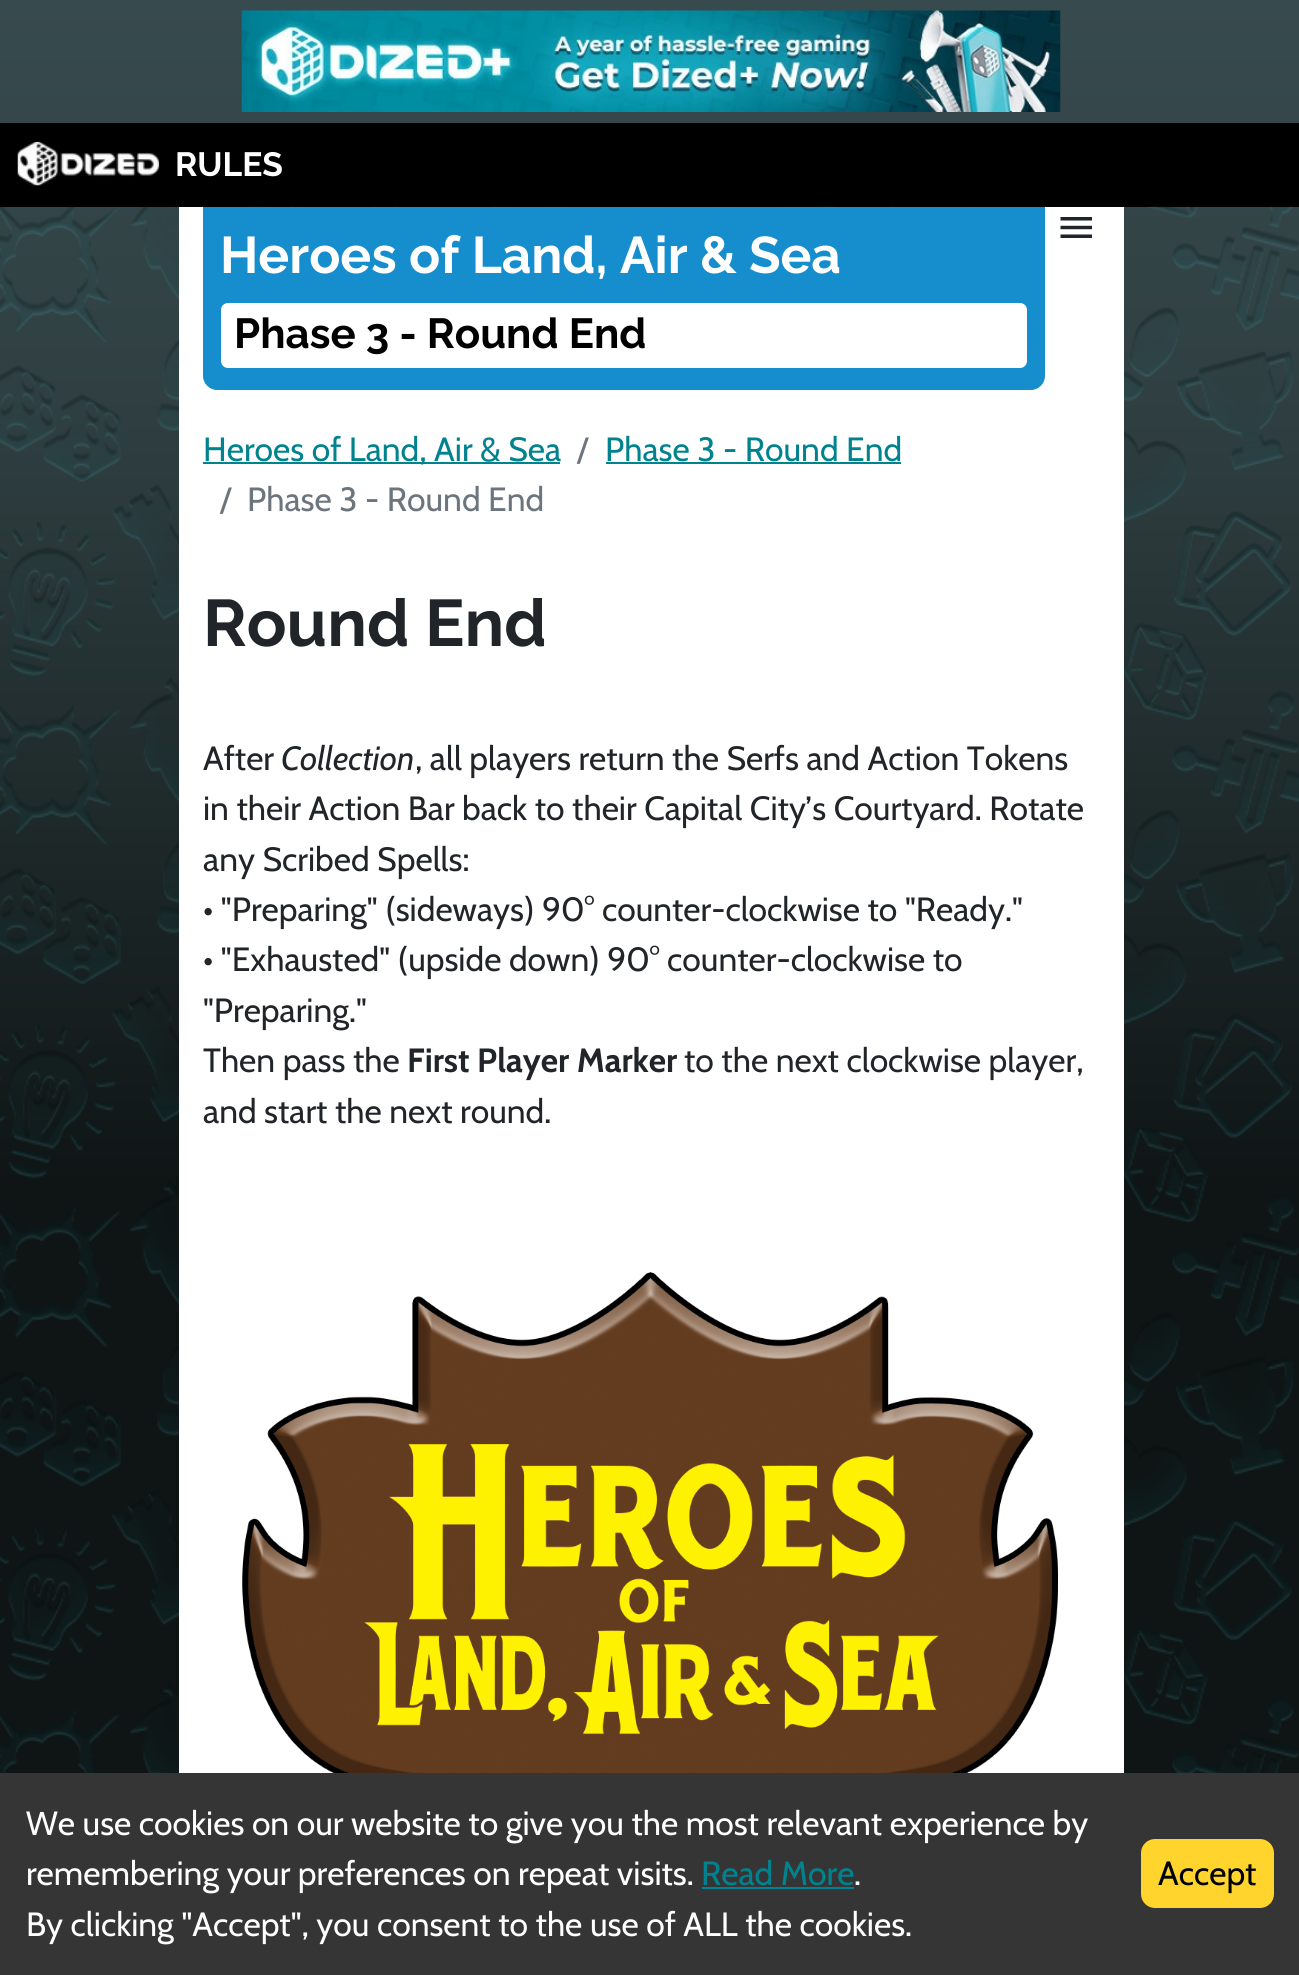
#include <cairo.h>
#include <math.h>
#include <stddef.h>


static void round_rect(cairo_t *cr, double x, double y, double w, double h, double r) {
    cairo_new_sub_path(cr);
    cairo_arc(cr, x + w - r, y + h - r, r, 0, M_PI / 2);
    cairo_arc(cr, x + r, y + h - r, r, M_PI / 2, M_PI);
    cairo_arc(cr, x + r, y + r, r, M_PI, 1.5 * M_PI);
    cairo_arc(cr, x + w - r, y + r, r, 1.5 * M_PI, 2 * M_PI);
    cairo_close_path(cr);
}

static void picture(cairo_t *cr, const char *path, double x, double y, double w, double h) {
    cairo_surface_t *image = cairo_image_surface_create_from_png(path);
    cairo_save(cr);
    cairo_set_source_surface(cr, image, x, y);
    cairo_rectangle(cr, x, y, w, h);
    cairo_fill(cr);
    cairo_restore(cr);
    cairo_surface_destroy(image);
}

int main(void) {
    cairo_surface_t *surface = cairo_image_surface_create(CAIRO_FORMAT_RGB24, 1299, 1975);
    cairo_t *cr = cairo_create(surface);
    cairo_font_options_t *options = cairo_font_options_create();
    cairo_font_options_set_hint_metrics(options, CAIRO_HINT_METRICS_OFF);
    cairo_font_options_set_hint_style(options, CAIRO_HINT_STYLE_NONE);
    cairo_set_font_options(cr, options);
    cairo_set_miter_limit(cr, 4);
    cairo_pattern_t *gradient;
    cairo_set_source_rgb(cr, 1, 1, 1);
    cairo_paint(cr);
    gradient = cairo_pattern_create_linear(650, 0, 650, 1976);
    cairo_pattern_add_color_stop_rgba(gradient, 0, 0.216, 0.29, 0.306, 1);
    cairo_pattern_add_color_stop_rgba(gradient, 0.2, 0.188, 0.251, 0.259, 1);
    cairo_pattern_add_color_stop_rgba(gradient, 0.6, 0.059, 0.082, 0.082, 1);
    cairo_set_source(cr, gradient);
    cairo_pattern_destroy(gradient);
    cairo_rectangle(cr, 0, 0, 1299, 1773);
    cairo_fill(cr);
    picture(cr, "img1.png", 241, 10, 820, 102);
    cairo_set_source_rgb(cr, 0, 0, 0);
    cairo_rectangle(cr, 0, 123, 1299, 84);
    cairo_fill(cr);
    picture(cr, "img2.png", 17, 141, 143, 45);
    cairo_select_font_face(cr, "Raleway", CAIRO_FONT_SLANT_NORMAL, CAIRO_FONT_WEIGHT_BOLD);
    cairo_set_font_size(cr, 33.6);
    cairo_set_source_rgb(cr, 1, 1, 1);
    cairo_move_to(cr, 175, 176);
    cairo_show_text(cr, "RULES");
    picture(cr, "img3.png", 0, 206, 1299, 1567);
    cairo_rectangle(cr, 179, 207, 945, 1566);
    cairo_fill(cr);
    picture(cr, "img4.png", 1060, 217, 32, 21);
    cairo_set_source_rgb(cr, 0.086, 0.553, 0.8);
    cairo_new_path(cr);
    cairo_move_to(cr, 203, 207);
    cairo_line_to(cr, 1045, 207);
    cairo_line_to(cr, 1045, 376);
    cairo_curve_to(cr, 1045, 383.5, 1038.5, 390, 1031, 390);
    cairo_line_to(cr, 217, 390);
    cairo_curve_to(cr, 209.5, 390, 203, 383.5, 203, 376);
    cairo_close_path(cr);
    cairo_fill(cr);
    cairo_set_font_size(cr, 51.5);
    cairo_set_source_rgb(cr, 1, 1, 1);
    cairo_move_to(cr, 220, 273);
    cairo_show_text(cr, "Heroes of Land, Air & Sea");
    round_rect(cr, 221, 303, 806, 65, 7);
    cairo_fill(cr);
    cairo_set_font_size(cr, 42);
    cairo_set_source_rgb(cr, 0, 0, 0);
    cairo_move_to(cr, 234, 348);
    cairo_show_text(cr, "Phase 3 - Round End");
    cairo_set_source_rgb(cr, 0, 0.514, 0.561);
    cairo_rectangle(cr, 203, 462, 357, 2);
    cairo_fill(cr);
    cairo_select_font_face(cr, "Cabin", CAIRO_FONT_SLANT_NORMAL, CAIRO_FONT_WEIGHT_NORMAL);
    cairo_set_font_size(cr, 33.6);
    cairo_move_to(cr, 203, 461);
    cairo_show_text(cr, "Heroes of Land, Air & Sea");
    cairo_set_source_rgb(cr, 0.424, 0.459, 0.49);
    cairo_move_to(cr, 577, 461);
    cairo_show_text(cr, "/");
    cairo_set_source_rgb(cr, 0, 0.514, 0.561);
    cairo_move_to(cr, 605, 461);
    cairo_show_text(cr, "Phase 3 - Round End");
    cairo_rectangle(cr, 606, 462, 295, 2);
    cairo_fill(cr);
    cairo_set_source_rgb(cr, 0.424, 0.459, 0.49);
    cairo_move_to(cr, 220, 511);
    cairo_show_text(cr, "/");
    cairo_move_to(cr, 247, 511);
    cairo_show_text(cr, "Phase 3 - Round End");
    cairo_select_font_face(cr, "Raleway", CAIRO_FONT_SLANT_NORMAL, CAIRO_FONT_WEIGHT_BOLD);
    cairo_set_font_size(cr, 65.75);
    cairo_set_source_rgb(cr, 0.129, 0.145, 0.161);
    cairo_move_to(cr, 203, 646);
    cairo_show_text(cr, "Round End");
    cairo_select_font_face(cr, "Cabin", CAIRO_FONT_SLANT_NORMAL, CAIRO_FONT_WEIGHT_NORMAL);
    cairo_set_font_size(cr, 33.6);
    cairo_move_to(cr, 203, 770);
    cairo_show_text(cr, "After");
    cairo_select_font_face(cr, "Cabin", CAIRO_FONT_SLANT_ITALIC, CAIRO_FONT_WEIGHT_NORMAL);
    cairo_move_to(cr, 281, 770);
    cairo_show_text(cr, "Collection");
    cairo_select_font_face(cr, "Cabin", CAIRO_FONT_SLANT_NORMAL, CAIRO_FONT_WEIGHT_NORMAL);
    cairo_move_to(cr, 415, 770);
    cairo_show_text(cr, ", all players return the Serfs and Action Tokens");
    cairo_move_to(cr, 203, 820);
    cairo_show_text(cr, "in their Action Bar back to their Capital City’s Courtyard. Rotate");
    cairo_move_to(cr, 203, 871);
    cairo_show_text(cr, "any Scribed Spells:");
    cairo_move_to(cr, 203, 921);
    cairo_show_text(cr, "• \"Preparing\" (sideways) 90° counter-clockwise to \"Ready.\"");
    cairo_move_to(cr, 203, 971);
    cairo_show_text(cr, "• \"Exhausted\" (upside down) 90° counter-clockwise to");
    cairo_move_to(cr, 203, 1022);
    cairo_show_text(cr, "\"Preparing.\"");
    cairo_move_to(cr, 203, 1072);
    cairo_show_text(cr, "Then pass the");
    cairo_select_font_face(cr, "Cabin", CAIRO_FONT_SLANT_NORMAL, CAIRO_FONT_WEIGHT_BOLD);
    cairo_move_to(cr, 407, 1072);
    cairo_show_text(cr, "First Player Marker");
    cairo_select_font_face(cr, "Cabin", CAIRO_FONT_SLANT_NORMAL, CAIRO_FONT_WEIGHT_NORMAL);
    cairo_move_to(cr, 684, 1072);
    cairo_show_text(cr, "to the next clockwise player,");
    cairo_move_to(cr, 203, 1123);
    cairo_show_text(cr, "and start the next round.");
    picture(cr, "img5.png", 242, 1272, 816, 501);
    cairo_set_source_rgb(cr, 0.208, 0.208, 0.208);
    cairo_rectangle(cr, 0, 1773, 1299, 202);
    cairo_fill(cr);
    cairo_set_source_rgb(cr, 1, 1, 1);
    cairo_move_to(cr, 26, 1835);
    cairo_show_text(cr, "We use cookies on our website to give you the most relevant experience by");
    cairo_move_to(cr, 26, 1885);
    cairo_show_text(cr, "remembering your preferences on repeat visits.");
    cairo_set_source_rgb(cr, 0, 0.514, 0.561);
    cairo_move_to(cr, 701, 1885);
    cairo_show_text(cr, "Read More");
    cairo_rectangle(cr, 702, 1887, 152, 2);
    cairo_fill(cr);
    cairo_set_source_rgb(cr, 1, 1, 1);
    cairo_move_to(cr, 854, 1885);
    cairo_show_text(cr, ".");
    cairo_move_to(cr, 26, 1936);
    cairo_show_text(cr, "By clicking \"Accept\", you consent to the use of ALL the cookies.");
    cairo_set_source_rgb(cr, 1, 0.831, 0.176);
    round_rect(cr, 1141, 1839, 133, 69, 14);
    cairo_fill(cr);
    cairo_set_source_rgb(cr, 0, 0, 0);
    cairo_move_to(cr, 1158, 1885);
    cairo_show_text(cr, "Accept");
    cairo_surface_write_to_png(surface, "page.png");
    cairo_font_options_destroy(options);
    cairo_destroy(cr);
    cairo_surface_destroy(surface);
    return 0;
}
